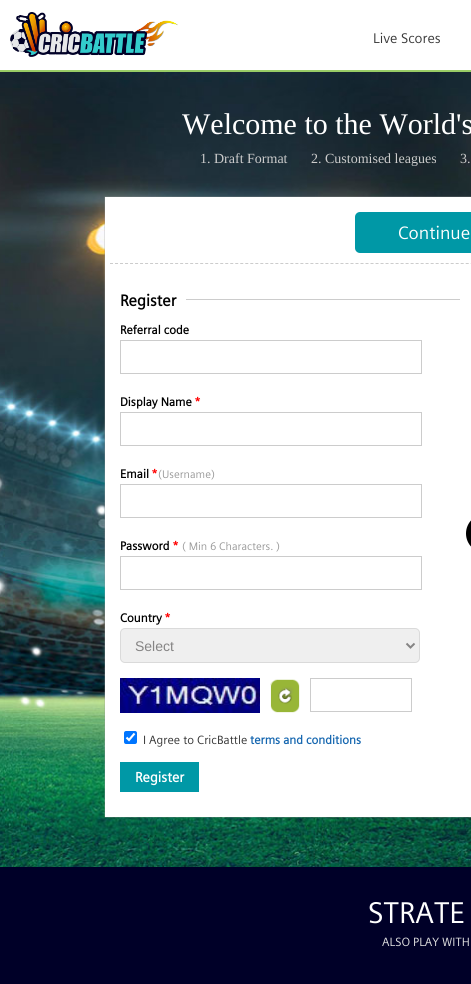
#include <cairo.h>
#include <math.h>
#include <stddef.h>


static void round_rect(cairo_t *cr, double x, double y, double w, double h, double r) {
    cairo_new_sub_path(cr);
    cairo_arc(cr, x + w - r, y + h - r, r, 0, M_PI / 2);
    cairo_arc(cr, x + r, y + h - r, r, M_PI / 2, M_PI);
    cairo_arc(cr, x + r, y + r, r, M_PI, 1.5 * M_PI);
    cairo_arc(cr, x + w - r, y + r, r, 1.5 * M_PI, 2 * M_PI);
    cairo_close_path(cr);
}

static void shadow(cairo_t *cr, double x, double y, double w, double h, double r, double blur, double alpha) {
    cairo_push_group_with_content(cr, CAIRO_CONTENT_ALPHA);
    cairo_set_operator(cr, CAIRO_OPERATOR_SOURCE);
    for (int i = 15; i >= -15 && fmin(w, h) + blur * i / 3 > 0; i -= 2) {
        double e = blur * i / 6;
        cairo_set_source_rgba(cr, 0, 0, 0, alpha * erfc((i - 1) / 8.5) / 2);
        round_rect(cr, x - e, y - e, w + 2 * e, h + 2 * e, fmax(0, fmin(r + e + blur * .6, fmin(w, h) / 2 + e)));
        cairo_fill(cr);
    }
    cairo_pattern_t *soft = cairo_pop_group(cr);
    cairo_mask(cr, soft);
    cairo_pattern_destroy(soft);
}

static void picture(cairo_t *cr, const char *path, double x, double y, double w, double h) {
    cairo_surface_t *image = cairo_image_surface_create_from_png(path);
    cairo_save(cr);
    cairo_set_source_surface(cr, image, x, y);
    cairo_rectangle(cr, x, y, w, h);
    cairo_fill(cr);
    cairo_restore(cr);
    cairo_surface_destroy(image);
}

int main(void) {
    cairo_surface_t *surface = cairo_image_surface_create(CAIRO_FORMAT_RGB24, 471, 984);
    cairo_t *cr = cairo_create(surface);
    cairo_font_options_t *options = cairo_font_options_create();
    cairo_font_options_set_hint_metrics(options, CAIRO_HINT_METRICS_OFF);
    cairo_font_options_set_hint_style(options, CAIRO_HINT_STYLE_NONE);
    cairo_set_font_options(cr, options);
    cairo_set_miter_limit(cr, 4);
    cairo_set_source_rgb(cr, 1, 1, 1);
    cairo_paint(cr);
    picture(cr, "img1.png", 10, 12, 168, 45);
    cairo_select_font_face(cr, "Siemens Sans", CAIRO_FONT_SLANT_NORMAL, CAIRO_FONT_WEIGHT_NORMAL);
    cairo_set_font_size(cr, 14);
    cairo_set_source_rgb(cr, 0.224, 0.224, 0.224);
    cairo_move_to(cr, 373, 43);
    cairo_show_text(cr, "Live Scores");
    picture(cr, "img2.png", 0, 72, 471, 795);
    cairo_set_source_rgb(cr, 0.6, 0.8, 0.4);
    cairo_rectangle(cr, 0, 70, 471, 2);
    cairo_fill(cr);
    cairo_select_font_face(cr, "Liberation Serif", CAIRO_FONT_SLANT_NORMAL, CAIRO_FONT_WEIGHT_NORMAL);
    cairo_set_font_size(cr, 30);
    cairo_set_source_rgb(cr, 1, 1, 1);
    cairo_move_to(cr, 182, 134);
    cairo_show_text(cr, "Welcome to the World's");
    cairo_set_font_size(cr, 14);
    cairo_set_source_rgb(cr, 0.8, 0.8, 0.8);
    cairo_move_to(cr, 200, 163);
    cairo_show_text(cr, "1. Draft Format");
    cairo_move_to(cr, 311, 163);
    cairo_show_text(cr, "2. Customised leagues");
    cairo_move_to(cr, 460, 163);
    cairo_show_text(cr, "3.");
    cairo_set_source_rgb(cr, 0.6, 0.6, 0.6);
    shadow(cr, 105, 197, 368, 620, 0, 0.5, 1);
    cairo_set_source_rgb(cr, 1, 1, 1);
    cairo_rectangle(cr, 105, 197, 366, 620);
    cairo_fill(cr);
    cairo_set_source_rgb(cr, 0, 0.596, 0.651);
    round_rect(cr, 355, 212, 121, 41, 5);
    cairo_fill(cr);
    cairo_select_font_face(cr, "Siemens Sans", CAIRO_FONT_SLANT_NORMAL, CAIRO_FONT_WEIGHT_NORMAL);
    cairo_set_font_size(cr, 18);
    cairo_set_source_rgb(cr, 1, 1, 1);
    cairo_move_to(cr, 398, 239);
    cairo_show_text(cr, "Continue");
    cairo_new_path(cr);
    cairo_move_to(cr, 110, 263.5);
    cairo_line_to(cr, 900, 263.5);
    cairo_set_source_rgb(cr, 0.8, 0.8, 0.8);
    cairo_set_line_width(cr, 1);
    cairo_set_dash(cr, (double[]){3, 2.01}, 2, 0);
    cairo_stroke(cr);
    cairo_rectangle(cr, 186, 299, 274, 1);
    cairo_fill(cr);
    cairo_select_font_face(cr, "Siemens Sans", CAIRO_FONT_SLANT_NORMAL, CAIRO_FONT_WEIGHT_BOLD);
    cairo_set_font_size(cr, 16);
    cairo_set_source_rgb(cr, 0, 0, 0);
    cairo_move_to(cr, 120, 306);
    cairo_show_text(cr, "Register");
    cairo_set_font_size(cr, 12);
    cairo_move_to(cr, 120, 334);
    cairo_show_text(cr, "Referral code");
    cairo_rectangle(cr, 120.5, 340.5, 301, 33);
    cairo_set_source_rgb(cr, 0.8, 0.8, 0.8);
    cairo_set_dash(cr, NULL, 0, 0);
    cairo_stroke(cr);
    cairo_set_source_rgb(cr, 0, 0, 0);
    cairo_move_to(cr, 120, 406);
    cairo_show_text(cr, "Display Name");
    cairo_set_source_rgb(cr, 1, 0, 0);
    cairo_move_to(cr, 194, 406);
    cairo_show_text(cr, "*");
    cairo_rectangle(cr, 120.5, 412.5, 301, 33);
    cairo_set_source_rgb(cr, 0.8, 0.8, 0.8);
    cairo_stroke(cr);
    cairo_set_source_rgb(cr, 0, 0, 0);
    cairo_move_to(cr, 120, 478);
    cairo_show_text(cr, "Email");
    cairo_set_source_rgb(cr, 1, 0, 0);
    cairo_move_to(cr, 151, 478);
    cairo_show_text(cr, "*");
    cairo_select_font_face(cr, "Siemens Sans", CAIRO_FONT_SLANT_NORMAL, CAIRO_FONT_WEIGHT_NORMAL);
    cairo_set_font_size(cr, 11);
    cairo_set_source_rgb(cr, 0.6, 0.6, 0.6);
    cairo_move_to(cr, 158, 478);
    cairo_show_text(cr, "(Username)");
    cairo_rectangle(cr, 120.5, 484.5, 301, 33);
    cairo_set_source_rgb(cr, 0.8, 0.8, 0.8);
    cairo_stroke(cr);
    cairo_select_font_face(cr, "Siemens Sans", CAIRO_FONT_SLANT_NORMAL, CAIRO_FONT_WEIGHT_BOLD);
    cairo_set_font_size(cr, 12);
    cairo_set_source_rgb(cr, 0, 0, 0);
    cairo_move_to(cr, 120, 550);
    cairo_show_text(cr, "Password");
    cairo_set_source_rgb(cr, 1, 0, 0);
    cairo_move_to(cr, 172, 550);
    cairo_show_text(cr, "*");
    cairo_select_font_face(cr, "Siemens Sans", CAIRO_FONT_SLANT_NORMAL, CAIRO_FONT_WEIGHT_NORMAL);
    cairo_set_font_size(cr, 11);
    cairo_set_source_rgb(cr, 0.6, 0.6, 0.6);
    cairo_move_to(cr, 182, 550);
    cairo_show_text(cr, "( Min 6 Characters. )");
    cairo_rectangle(cr, 120.5, 556.5, 301, 33);
    cairo_set_source_rgb(cr, 0.8, 0.8, 0.8);
    cairo_stroke(cr);
    cairo_select_font_face(cr, "Siemens Sans", CAIRO_FONT_SLANT_NORMAL, CAIRO_FONT_WEIGHT_BOLD);
    cairo_set_font_size(cr, 12);
    cairo_set_source_rgb(cr, 0, 0, 0);
    cairo_move_to(cr, 120, 622);
    cairo_show_text(cr, "Country");
    cairo_set_source_rgb(cr, 1, 0, 0);
    cairo_move_to(cr, 164, 622);
    cairo_show_text(cr, "*");
    cairo_set_source_rgb(cr, 0.937, 0.937, 0.937);
    round_rect(cr, 120.5, 628.5, 299, 34, 4.5);
    cairo_fill_preserve(cr);
    cairo_set_source_rgb(cr, 0.855, 0.855, 0.855);
    cairo_stroke(cr);
    cairo_new_path(cr);
    cairo_move_to(cr, 406.5, 643.5);
    cairo_line_to(cr, 410.5, 647.5);
    cairo_line_to(cr, 414.5, 643.5);
    cairo_set_source_rgb(cr, 0.522, 0.518, 0.518);
    cairo_set_line_width(cr, 2);
    cairo_stroke(cr);
    cairo_select_font_face(cr, "Liberation Sans", CAIRO_FONT_SLANT_NORMAL, CAIRO_FONT_WEIGHT_NORMAL);
    cairo_set_font_size(cr, 14);
    cairo_move_to(cr, 135, 651);
    cairo_show_text(cr, "Select");
    picture(cr, "img3.png", 120, 678, 140, 35);
    picture(cr, "img4.png", 270, 679, 30, 34);
    cairo_rectangle(cr, 310.5, 678.5, 101, 33);
    cairo_set_source_rgb(cr, 0.8, 0.8, 0.8);
    cairo_set_line_width(cr, 1);
    cairo_stroke(cr);
    cairo_set_source_rgb(cr, 0, 0.459, 1);
    round_rect(cr, 124, 731, 13, 13, 2);
    cairo_fill(cr);
    cairo_new_path(cr);
    cairo_move_to(cr, 126.5, 737.5);
    cairo_line_to(cr, 129, 740);
    cairo_line_to(cr, 134.5, 733.5);
    cairo_set_source_rgb(cr, 1, 1, 1);
    cairo_set_line_width(cr, 2.1);
    cairo_stroke(cr);
    cairo_select_font_face(cr, "Siemens Sans", CAIRO_FONT_SLANT_NORMAL, CAIRO_FONT_WEIGHT_NORMAL);
    cairo_set_font_size(cr, 12);
    cairo_set_source_rgb(cr, 0.2, 0.2, 0.2);
    cairo_move_to(cr, 143, 744);
    cairo_show_text(cr, "I Agree to CricBattle");
    cairo_select_font_face(cr, "Siemens Sans", CAIRO_FONT_SLANT_NORMAL, CAIRO_FONT_WEIGHT_BOLD);
    cairo_set_source_rgb(cr, 0.086, 0.404, 0.69);
    cairo_move_to(cr, 250, 744);
    cairo_show_text(cr, "terms and conditions");
    cairo_set_source_rgb(cr, 0, 0.596, 0.651);
    cairo_rectangle(cr, 120, 762, 79, 30);
    cairo_fill(cr);
    cairo_set_font_size(cr, 14);
    cairo_set_source_rgb(cr, 1, 1, 1);
    cairo_move_to(cr, 135, 782);
    cairo_show_text(cr, "Register");
    cairo_set_source_rgb(cr, 0, 0, 0);
    round_rect(cr, 466, 514, 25, 39, 19.5);
    cairo_fill(cr);
    cairo_set_source_rgb(cr, 0, 0, 0.157);
    cairo_rectangle(cr, 0, 867, 471, 117);
    cairo_fill(cr);
    cairo_select_font_face(cr, "Siemens Sans", CAIRO_FONT_SLANT_NORMAL, CAIRO_FONT_WEIGHT_NORMAL);
    cairo_set_font_size(cr, 30);
    cairo_set_source_rgb(cr, 1, 1, 1);
    cairo_move_to(cr, 368, 923);
    cairo_show_text(cr, "STRATE");
    cairo_set_font_size(cr, 12);
    cairo_set_source_rgb(cr, 0.882, 0.882, 0.882);
    cairo_move_to(cr, 382, 946);
    cairo_show_text(cr, "ALSO PLAY WITH");
    cairo_surface_write_to_png(surface, "page.png");
    cairo_font_options_destroy(options);
    cairo_destroy(cr);
    cairo_surface_destroy(surface);
    return 0;
}
